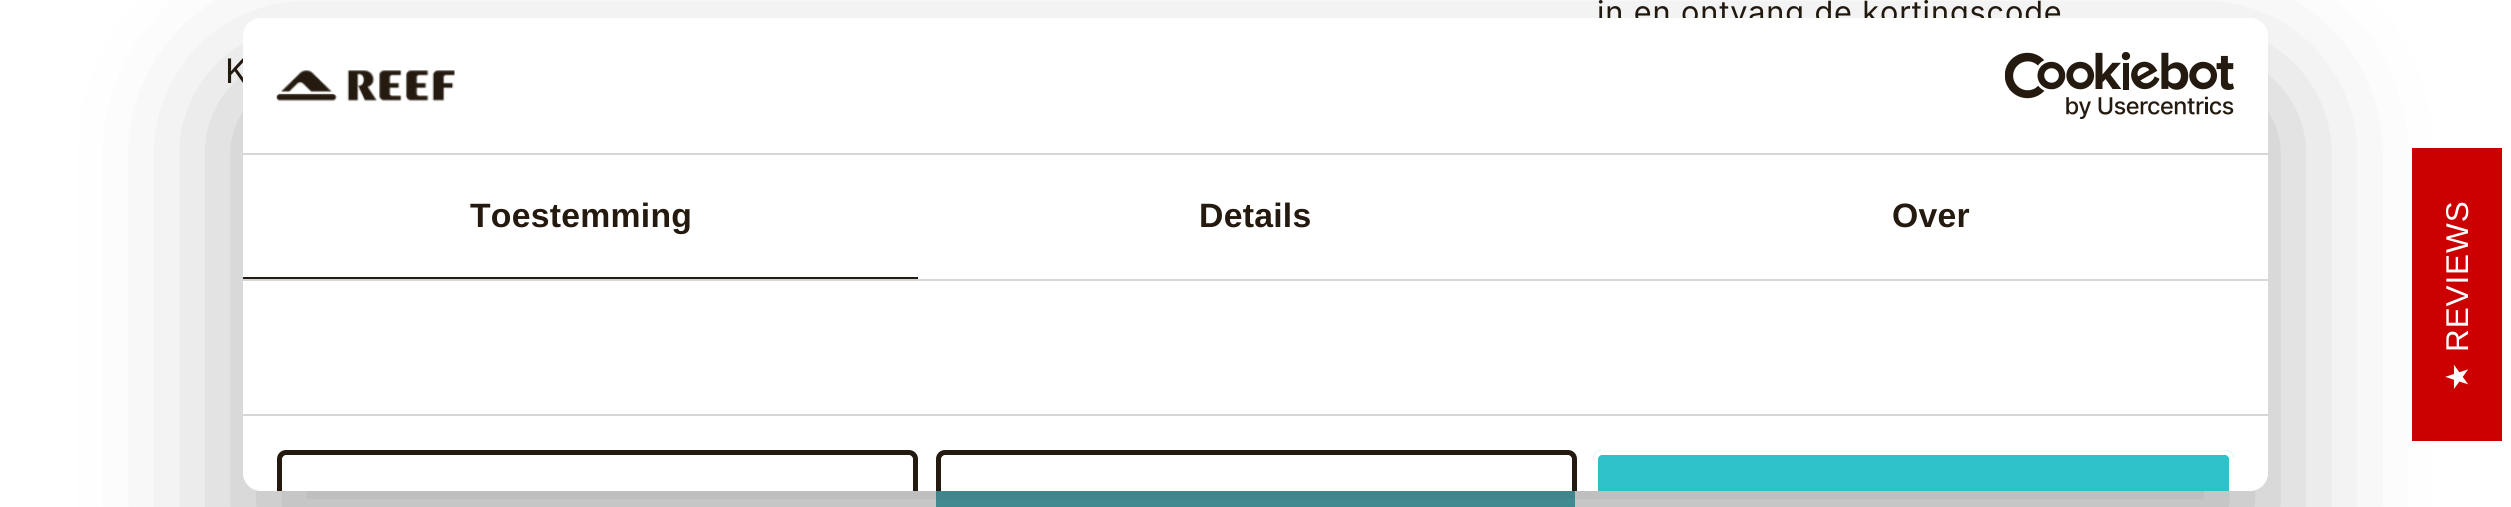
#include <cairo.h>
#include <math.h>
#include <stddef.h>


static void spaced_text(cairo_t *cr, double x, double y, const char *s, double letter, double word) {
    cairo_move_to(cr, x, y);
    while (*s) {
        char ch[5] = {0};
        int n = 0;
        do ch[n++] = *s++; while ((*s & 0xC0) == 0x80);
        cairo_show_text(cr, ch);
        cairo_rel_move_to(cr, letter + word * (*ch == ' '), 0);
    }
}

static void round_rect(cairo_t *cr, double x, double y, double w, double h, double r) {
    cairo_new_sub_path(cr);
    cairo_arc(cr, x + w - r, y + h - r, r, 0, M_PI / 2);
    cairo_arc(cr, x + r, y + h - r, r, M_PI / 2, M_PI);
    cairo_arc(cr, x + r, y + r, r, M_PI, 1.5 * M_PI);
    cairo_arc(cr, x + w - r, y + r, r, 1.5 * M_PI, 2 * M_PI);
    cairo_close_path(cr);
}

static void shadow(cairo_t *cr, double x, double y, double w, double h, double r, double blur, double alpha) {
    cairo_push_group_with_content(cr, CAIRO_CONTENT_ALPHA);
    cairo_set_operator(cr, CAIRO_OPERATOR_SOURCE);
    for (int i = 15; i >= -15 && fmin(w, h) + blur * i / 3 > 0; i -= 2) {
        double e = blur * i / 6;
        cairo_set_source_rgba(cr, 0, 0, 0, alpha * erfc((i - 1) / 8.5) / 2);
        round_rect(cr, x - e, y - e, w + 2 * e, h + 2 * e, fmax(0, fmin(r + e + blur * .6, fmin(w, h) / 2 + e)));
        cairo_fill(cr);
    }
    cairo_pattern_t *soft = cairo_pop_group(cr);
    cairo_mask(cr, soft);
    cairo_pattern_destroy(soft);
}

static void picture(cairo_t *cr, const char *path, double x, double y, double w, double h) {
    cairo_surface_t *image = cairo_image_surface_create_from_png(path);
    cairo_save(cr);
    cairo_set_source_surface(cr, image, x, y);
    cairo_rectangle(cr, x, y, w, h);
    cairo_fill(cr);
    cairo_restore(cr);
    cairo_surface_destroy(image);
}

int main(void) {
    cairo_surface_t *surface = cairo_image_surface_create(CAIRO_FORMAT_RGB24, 2511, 507);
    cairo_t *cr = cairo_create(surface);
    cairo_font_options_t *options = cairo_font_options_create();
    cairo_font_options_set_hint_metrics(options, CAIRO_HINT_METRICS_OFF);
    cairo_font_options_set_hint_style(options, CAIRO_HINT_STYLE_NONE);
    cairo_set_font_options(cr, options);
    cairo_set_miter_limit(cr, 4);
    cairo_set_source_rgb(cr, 1, 1, 1);
    cairo_paint(cr);
    cairo_select_font_face(cr, "Inter", CAIRO_FONT_SLANT_NORMAL, CAIRO_FONT_WEIGHT_NORMAL);
    cairo_set_font_size(cr, 30.6);
    cairo_set_source_rgb(cr, 0.141, 0.102, 0.059);
    spaced_text(cr, 1597, 23, "in en ontvang de kortingscode", 0.9, 0);
    cairo_set_font_size(cr, 33.75);
    spaced_text(cr, 225, 83, "K", 0.9, 0);
    cairo_set_source_rgb(cr, 0.8, 0, 0);
    cairo_rectangle(cr, 2412, 148, 90, 293);
    cairo_fill(cr);
    cairo_set_source_rgb(cr, 0.329, 0.698, 0.725);
    cairo_rectangle(cr, 936, 491, 639, 16);
    cairo_fill(cr);
    cairo_set_source_rgb(cr, 0, 0, 0);
    shadow(cr, 243, 90, 2025, 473, 18, 76.5, 0.3);
    cairo_set_source_rgb(cr, 1, 1, 1);
    round_rect(cr, 243, 18, 2025, 473, 18);
    cairo_fill(cr);
    cairo_set_source_rgb(cr, 0.839, 0.839, 0.839);
    cairo_rectangle(cr, 243, 153, 2025, 2);
    cairo_fill(cr);
    picture(cr, "img1.png", 276, 70, 179, 32);
    picture(cr, "img2.png", 2005, 52, 229, 67);
    cairo_rectangle(cr, 243, 279, 2025, 2);
    cairo_fill(cr);
    cairo_set_source_rgb(cr, 0.141, 0.102, 0.059);
    cairo_rectangle(cr, 243, 277, 675, 2);
    cairo_fill(cr);
    cairo_select_font_face(cr, "Liberation Sans", CAIRO_FONT_SLANT_NORMAL, CAIRO_FONT_WEIGHT_BOLD);
    spaced_text(cr, 470, 227, "Toestemming", 0.25, 0);
    spaced_text(cr, 1199, 227, "Details", 0.25, 0);
    spaced_text(cr, 1892, 227, "Over", 0.25, 0);
    cairo_set_source_rgb(cr, 0.839, 0.839, 0.839);
    cairo_rectangle(cr, 243, 414, 2025, 2);
    cairo_fill(cr);
    cairo_set_source_rgb(cr, 0.141, 0.102, 0.059);
    cairo_new_path(cr);
    cairo_move_to(cr, 286, 450);
    cairo_curve_to(cr, 281, 450, 277, 454, 277, 459);
    cairo_line_to(cr, 277, 491);
    cairo_line_to(cr, 282, 491);
    cairo_line_to(cr, 282, 459);
    cairo_curve_to(cr, 282, 457, 284, 455, 286, 455);
    cairo_line_to(cr, 909, 455);
    cairo_curve_to(cr, 911, 455, 913, 457, 913, 459);
    cairo_line_to(cr, 913, 491);
    cairo_line_to(cr, 918, 491);
    cairo_line_to(cr, 918, 459);
    cairo_curve_to(cr, 918, 454, 914, 450, 909, 450);
    cairo_close_path(cr);
    cairo_fill(cr);
    cairo_new_path(cr);
    cairo_move_to(cr, 945, 450);
    cairo_curve_to(cr, 940, 450, 936, 454, 936, 459);
    cairo_line_to(cr, 936, 491);
    cairo_line_to(cr, 941, 491);
    cairo_line_to(cr, 941, 459);
    cairo_curve_to(cr, 941, 457, 943, 455, 945, 455);
    cairo_line_to(cr, 1568, 455);
    cairo_curve_to(cr, 1570, 455, 1572, 457, 1572, 459);
    cairo_line_to(cr, 1572, 491);
    cairo_line_to(cr, 1577, 491);
    cairo_line_to(cr, 1577, 459);
    cairo_curve_to(cr, 1577, 454, 1573, 450, 1568, 450);
    cairo_close_path(cr);
    cairo_fill(cr);
    cairo_set_source_rgb(cr, 0.184, 0.757, 0.788);
    cairo_new_path(cr);
    cairo_move_to(cr, 1602, 450);
    cairo_line_to(cr, 2225, 450);
    cairo_curve_to(cr, 2230, 450, 2234, 454, 2234, 459);
    cairo_line_to(cr, 2234, 491);
    cairo_line_to(cr, 1593, 491);
    cairo_line_to(cr, 1593, 459);
    cairo_curve_to(cr, 1593, 454, 1597, 450, 1602, 450);
    cairo_close_path(cr);
    cairo_fill(cr);
    cairo_set_source_rgb(cr, 1, 1, 1);
    cairo_new_path(cr);
    cairo_move_to(cr, 1602, 450);
    cairo_curve_to(cr, 1597, 450, 1593, 454, 1593, 459);
    cairo_line_to(cr, 1593, 491);
    cairo_line_to(cr, 1598, 491);
    cairo_line_to(cr, 1598, 459);
    cairo_curve_to(cr, 1598, 457, 1600, 455, 1602, 455);
    cairo_line_to(cr, 2225, 455);
    cairo_curve_to(cr, 2227, 455, 2229, 457, 2229, 459);
    cairo_line_to(cr, 2229, 491);
    cairo_line_to(cr, 2234, 491);
    cairo_line_to(cr, 2234, 459);
    cairo_curve_to(cr, 2234, 454, 2230, 450, 2225, 450);
    cairo_close_path(cr);
    cairo_fill(cr);
    cairo_select_font_face(cr, "Liberation Sans", CAIRO_FONT_SLANT_NORMAL, CAIRO_FONT_WEIGHT_NORMAL);
    cairo_set_font_size(cr, 31.5);
    cairo_save(cr);
    cairo_translate(cr, 2468, 352);
    cairo_rotate(cr, -90 * M_PI / 180);
    spaced_text(cr, 0, 0, "REVIEWS", 0.9, 0);
    cairo_restore(cr);
    cairo_select_font_face(cr, "DejaVu Sans", CAIRO_FONT_SLANT_NORMAL, CAIRO_FONT_WEIGHT_NORMAL);
    cairo_save(cr);
    cairo_translate(cr, 2468, 391);
    cairo_rotate(cr, -90 * M_PI / 180);
    spaced_text(cr, 0, 0, "★", 0.9, 0);
    cairo_restore(cr);
    cairo_surface_write_to_png(surface, "page.png");
    cairo_font_options_destroy(options);
    cairo_destroy(cr);
    cairo_surface_destroy(surface);
    return 0;
}
